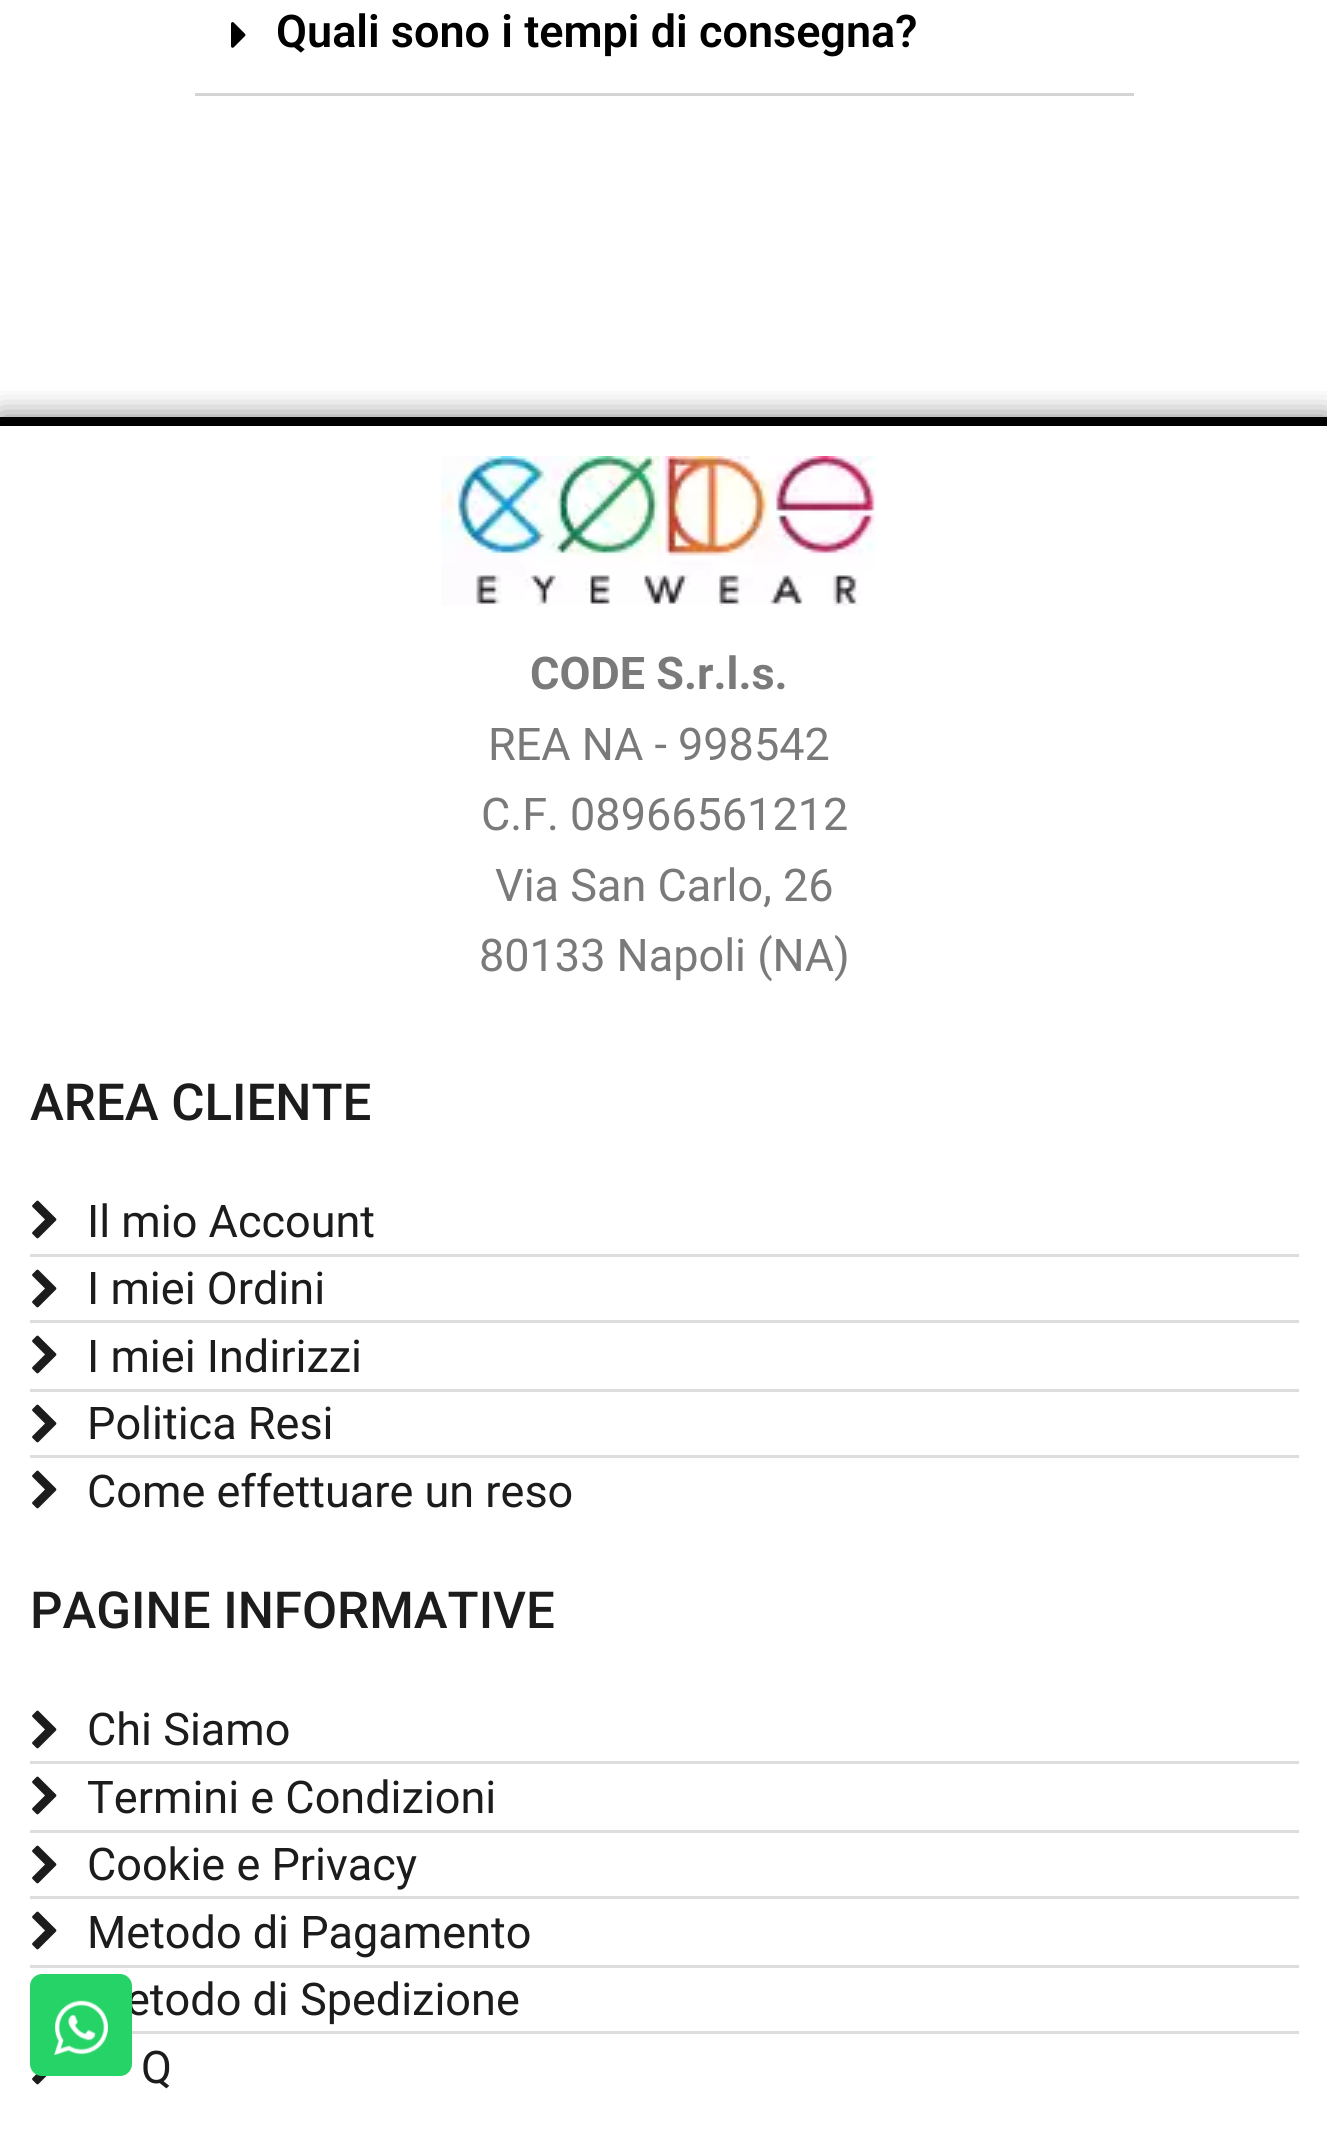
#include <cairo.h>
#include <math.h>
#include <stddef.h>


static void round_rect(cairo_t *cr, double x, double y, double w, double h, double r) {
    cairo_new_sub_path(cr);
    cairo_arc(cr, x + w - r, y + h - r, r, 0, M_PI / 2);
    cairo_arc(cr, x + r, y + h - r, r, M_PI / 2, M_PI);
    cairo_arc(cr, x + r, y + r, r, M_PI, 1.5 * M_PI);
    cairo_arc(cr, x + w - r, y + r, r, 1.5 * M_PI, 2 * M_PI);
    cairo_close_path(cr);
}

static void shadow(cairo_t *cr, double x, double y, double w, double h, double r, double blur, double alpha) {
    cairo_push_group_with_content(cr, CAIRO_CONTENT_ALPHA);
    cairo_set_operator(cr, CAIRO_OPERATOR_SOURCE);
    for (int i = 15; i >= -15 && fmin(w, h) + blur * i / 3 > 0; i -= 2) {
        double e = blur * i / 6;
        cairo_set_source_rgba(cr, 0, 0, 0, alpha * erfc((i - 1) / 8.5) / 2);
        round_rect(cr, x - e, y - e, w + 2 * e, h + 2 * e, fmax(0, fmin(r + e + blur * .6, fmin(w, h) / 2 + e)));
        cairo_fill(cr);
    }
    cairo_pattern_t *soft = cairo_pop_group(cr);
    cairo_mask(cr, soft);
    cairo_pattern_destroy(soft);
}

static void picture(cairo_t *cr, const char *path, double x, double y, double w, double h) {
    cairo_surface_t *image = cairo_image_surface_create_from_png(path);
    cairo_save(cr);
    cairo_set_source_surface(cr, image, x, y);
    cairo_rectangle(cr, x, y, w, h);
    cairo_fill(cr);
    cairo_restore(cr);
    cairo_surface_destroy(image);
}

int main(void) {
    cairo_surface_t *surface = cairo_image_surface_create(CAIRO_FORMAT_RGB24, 1327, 2134);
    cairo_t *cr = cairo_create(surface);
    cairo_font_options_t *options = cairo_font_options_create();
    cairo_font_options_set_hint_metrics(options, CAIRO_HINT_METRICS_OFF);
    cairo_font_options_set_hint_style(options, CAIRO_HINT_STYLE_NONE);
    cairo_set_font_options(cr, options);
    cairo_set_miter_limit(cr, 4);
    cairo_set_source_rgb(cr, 1, 1, 1);
    cairo_paint(cr);
    cairo_set_source_rgb(cr, 0.831, 0.831, 0.831);
    cairo_rectangle(cr, 195, 93, 939, 3);
    cairo_fill(cr);
    picture(cr, "img1.png", 231, 22, 15, 26);
    cairo_select_font_face(cr, "Roboto SemiBold", CAIRO_FONT_SLANT_NORMAL, CAIRO_FONT_WEIGHT_NORMAL);
    cairo_set_font_size(cr, 45);
    cairo_set_source_rgb(cr, 0, 0, 0);
    cairo_move_to(cr, 276, 47);
    cairo_show_text(cr, "Quali sono i tempi di consegna?");
    cairo_save(cr);
    cairo_rectangle(cr, 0, 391, 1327, 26);
    cairo_clip(cr);
    cairo_set_source_rgb(cr, 0, 0, 0);
    shadow(cr, 0, 417, 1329, 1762, 0, 15, 0.5);
    cairo_restore(cr);
    cairo_rectangle(cr, 0, 417, 1327, 9);
    cairo_fill(cr);
    picture(cr, "img2.png", 441, 456, 436, 150);
    cairo_select_font_face(cr, "Roboto", CAIRO_FONT_SLANT_NORMAL, CAIRO_FONT_WEIGHT_BOLD);
    cairo_set_source_rgb(cr, 0.478, 0.478, 0.478);
    cairo_move_to(cr, 530, 689);
    cairo_show_text(cr, "CODE S.r.l.s.");
    cairo_select_font_face(cr, "Roboto", CAIRO_FONT_SLANT_NORMAL, CAIRO_FONT_WEIGHT_NORMAL);
    cairo_move_to(cr, 488, 760);
    cairo_show_text(cr, "REA NA - 998542");
    cairo_move_to(cr, 481, 830);
    cairo_show_text(cr, "C.F. 08966561212");
    cairo_move_to(cr, 495, 901);
    cairo_show_text(cr, "Via San Carlo, 26");
    cairo_move_to(cr, 479, 971);
    cairo_show_text(cr, "80133 Napoli (NA)");
    cairo_select_font_face(cr, "Roboto Medium", CAIRO_FONT_SLANT_NORMAL, CAIRO_FONT_WEIGHT_NORMAL);
    cairo_set_font_size(cr, 51);
    cairo_set_source_rgb(cr, 0.11, 0.11, 0.11);
    cairo_move_to(cr, 30, 1120);
    cairo_show_text(cr, "AREA CLIENTE");
    picture(cr, "img3.png", 32, 1200, 25, 39);
    cairo_select_font_face(cr, "Roboto", CAIRO_FONT_SLANT_NORMAL, CAIRO_FONT_WEIGHT_NORMAL);
    cairo_set_font_size(cr, 45);
    cairo_move_to(cr, 87, 1237);
    cairo_show_text(cr, "Il mio Account");
    cairo_set_source_rgb(cr, 0.867, 0.867, 0.867);
    cairo_rectangle(cr, 30, 1254, 1269, 3);
    cairo_fill(cr);
    picture(cr, "img3.png", 32, 1269, 25, 39);
    cairo_set_source_rgb(cr, 0.11, 0.11, 0.11);
    cairo_move_to(cr, 87, 1304);
    cairo_show_text(cr, "I miei Ordini");
    cairo_set_source_rgb(cr, 0.867, 0.867, 0.867);
    cairo_rectangle(cr, 30, 1320, 1269, 3);
    cairo_fill(cr);
    picture(cr, "img3.png", 32, 1335, 25, 39);
    cairo_set_source_rgb(cr, 0.11, 0.11, 0.11);
    cairo_move_to(cr, 87, 1372);
    cairo_show_text(cr, "I miei Indirizzi");
    cairo_set_source_rgb(cr, 0.867, 0.867, 0.867);
    cairo_rectangle(cr, 30, 1389, 1269, 3);
    cairo_fill(cr);
    picture(cr, "img3.png", 32, 1404, 25, 39);
    cairo_set_source_rgb(cr, 0.11, 0.11, 0.11);
    cairo_move_to(cr, 87, 1439);
    cairo_show_text(cr, "Politica Resi");
    cairo_set_source_rgb(cr, 0.867, 0.867, 0.867);
    cairo_rectangle(cr, 30, 1455, 1269, 3);
    cairo_fill(cr);
    picture(cr, "img3.png", 32, 1470, 25, 39);
    cairo_set_source_rgb(cr, 0.11, 0.11, 0.11);
    cairo_move_to(cr, 87, 1507);
    cairo_show_text(cr, "Come effettuare un reso");
    cairo_select_font_face(cr, "Roboto Medium", CAIRO_FONT_SLANT_NORMAL, CAIRO_FONT_WEIGHT_NORMAL);
    cairo_set_font_size(cr, 51);
    cairo_move_to(cr, 30, 1628);
    cairo_show_text(cr, "PAGINE INFORMATIVE");
    picture(cr, "img3.png", 32, 1710, 25, 39);
    cairo_select_font_face(cr, "Roboto", CAIRO_FONT_SLANT_NORMAL, CAIRO_FONT_WEIGHT_NORMAL);
    cairo_set_font_size(cr, 45);
    cairo_move_to(cr, 87, 1745);
    cairo_show_text(cr, "Chi Siamo");
    cairo_set_source_rgb(cr, 0.867, 0.867, 0.867);
    cairo_rectangle(cr, 30, 1761, 1269, 3);
    cairo_fill(cr);
    picture(cr, "img3.png", 32, 1776, 25, 39);
    cairo_set_source_rgb(cr, 0.11, 0.11, 0.11);
    cairo_move_to(cr, 87, 1813);
    cairo_show_text(cr, "Termini e Condizioni");
    cairo_set_source_rgb(cr, 0.867, 0.867, 0.867);
    cairo_rectangle(cr, 30, 1830, 1269, 3);
    cairo_fill(cr);
    picture(cr, "img3.png", 32, 1845, 25, 39);
    cairo_set_source_rgb(cr, 0.11, 0.11, 0.11);
    cairo_move_to(cr, 87, 1880);
    cairo_show_text(cr, "Cookie e Privacy");
    cairo_set_source_rgb(cr, 0.867, 0.867, 0.867);
    cairo_rectangle(cr, 30, 1896, 1269, 3);
    cairo_fill(cr);
    picture(cr, "img3.png", 32, 1911, 25, 39);
    cairo_set_source_rgb(cr, 0.11, 0.11, 0.11);
    cairo_move_to(cr, 87, 1948);
    cairo_show_text(cr, "Metodo di Pagamento");
    cairo_set_source_rgb(cr, 0.867, 0.867, 0.867);
    cairo_rectangle(cr, 30, 1965, 1269, 3);
    cairo_fill(cr);
    cairo_set_source_rgb(cr, 0.11, 0.11, 0.11);
    cairo_move_to(cr, 126, 2015);
    cairo_show_text(cr, "etodo di Spedizione");
    cairo_set_source_rgb(cr, 0.867, 0.867, 0.867);
    cairo_rectangle(cr, 132, 2031, 1167, 3);
    cairo_fill(cr);
    picture(cr, "img4.png", 32, 2074, 15, 11);
    cairo_set_source_rgb(cr, 0.11, 0.11, 0.11);
    cairo_move_to(cr, 141, 2083);
    cairo_show_text(cr, "Q");
    cairo_set_source_rgb(cr, 0.145, 0.827, 0.4);
    round_rect(cr, 30, 1974, 102, 102, 12);
    cairo_fill(cr);
    picture(cr, "img5.png", 54, 2000, 54, 55);
    cairo_surface_write_to_png(surface, "page.png");
    cairo_font_options_destroy(options);
    cairo_destroy(cr);
    cairo_surface_destroy(surface);
    return 0;
}
